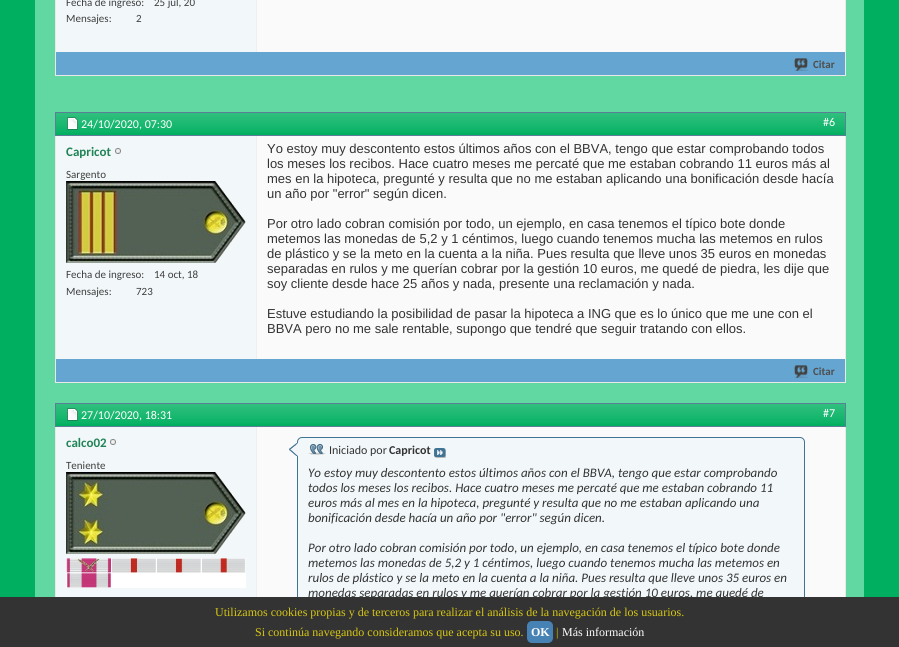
#include <cairo.h>
#include <math.h>
#include <stddef.h>


static void round_rect(cairo_t *cr, double x, double y, double w, double h, double r) {
    cairo_new_sub_path(cr);
    cairo_arc(cr, x + w - r, y + h - r, r, 0, M_PI / 2);
    cairo_arc(cr, x + r, y + h - r, r, M_PI / 2, M_PI);
    cairo_arc(cr, x + r, y + r, r, M_PI, 1.5 * M_PI);
    cairo_arc(cr, x + w - r, y + r, r, 1.5 * M_PI, 2 * M_PI);
    cairo_close_path(cr);
}

static void picture(cairo_t *cr, const char *path, double x, double y, double w, double h) {
    cairo_surface_t *image = cairo_image_surface_create_from_png(path);
    cairo_save(cr);
    cairo_set_source_surface(cr, image, x, y);
    cairo_rectangle(cr, x, y, w, h);
    cairo_fill(cr);
    cairo_restore(cr);
    cairo_surface_destroy(image);
}

int main(void) {
    cairo_surface_t *surface = cairo_image_surface_create(CAIRO_FORMAT_RGB24, 899, 647);
    cairo_t *cr = cairo_create(surface);
    cairo_font_options_t *options = cairo_font_options_create();
    cairo_font_options_set_hint_metrics(options, CAIRO_HINT_METRICS_OFF);
    cairo_font_options_set_hint_style(options, CAIRO_HINT_STYLE_NONE);
    cairo_set_font_options(cr, options);
    cairo_set_miter_limit(cr, 4);
    cairo_set_source_rgb(cr, 0, 0.69, 0.376);
    cairo_paint(cr);
    cairo_set_source_rgb(cr, 0.38, 0.847, 0.635);
    cairo_rectangle(cr, 35, 0, 829, 597);
    cairo_fill(cr);
    cairo_rectangle(cr, 55.5, -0.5, 790, 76);
    cairo_set_source_rgb(cr, 0.914, 0.914, 0.914);
    cairo_set_line_width(cr, 1);
    cairo_stroke(cr);
    cairo_set_source_rgb(cr, 0.949, 0.965, 0.973);
    cairo_rectangle(cr, 56, 0, 200, 52);
    cairo_fill(cr);
    cairo_select_font_face(cr, "Carlito", CAIRO_FONT_SLANT_NORMAL, CAIRO_FONT_WEIGHT_NORMAL);
    cairo_set_font_size(cr, 11);
    cairo_set_source_rgb(cr, 0.243, 0.243, 0.243);
    cairo_move_to(cr, 66, 6);
    cairo_show_text(cr, "Fecha de ingreso:");
    cairo_move_to(cr, 154, 6);
    cairo_show_text(cr, "25 jul, 20");
    cairo_move_to(cr, 66, 22);
    cairo_show_text(cr, "Mensajes:");
    cairo_move_to(cr, 136, 22);
    cairo_show_text(cr, "2");
    cairo_set_source_rgb(cr, 0.98, 0.98, 0.98);
    cairo_rectangle(cr, 257, 0, 588, 52);
    cairo_fill(cr);
    cairo_set_source_rgb(cr, 0.937, 0.937, 0.937);
    cairo_rectangle(cr, 256, 0, 1, 52);
    cairo_fill(cr);
    cairo_set_source_rgb(cr, 0.396, 0.647, 0.82);
    cairo_rectangle(cr, 56, 52, 789, 23);
    cairo_fill(cr);
    picture(cr, "img1.png", 794, 58, 14, 13);
    cairo_select_font_face(cr, "Carlito", CAIRO_FONT_SLANT_NORMAL, CAIRO_FONT_WEIGHT_BOLD);
    cairo_set_source_rgb(cr, 0.306, 0.306, 0.306);
    cairo_move_to(cr, 813, 68);
    cairo_show_text(cr, "Citar");
    cairo_rectangle(cr, 55.5, 112.5, 790, 270);
    cairo_set_source_rgb(cr, 0.914, 0.914, 0.914);
    cairo_stroke(cr);
    cairo_set_source_rgb(cr, 0, 0.69, 0.376);
    cairo_rectangle(cr, 56, 113, 789, 22);
    cairo_fill(cr);
    picture(cr, "img2.png", 56, 113, 789, 20);
    cairo_rectangle(cr, 55.5, 112.5, 790, 23);
    cairo_set_source_rgb(cr, 0.353, 0.498, 0.592);
    cairo_stroke(cr);
    picture(cr, "img3.png", 67, 117, 11, 13);
    cairo_select_font_face(cr, "Carlito", CAIRO_FONT_SLANT_NORMAL, CAIRO_FONT_WEIGHT_NORMAL);
    cairo_set_font_size(cr, 12);
    cairo_set_source_rgb(cr, 1, 1, 1);
    cairo_move_to(cr, 81, 128);
    cairo_show_text(cr, "24/10/2020, 07:30");
    cairo_move_to(cr, 823, 126);
    cairo_show_text(cr, "#6");
    cairo_set_source_rgb(cr, 0.949, 0.965, 0.973);
    cairo_rectangle(cr, 56, 136, 200, 223);
    cairo_fill(cr);
    cairo_select_font_face(cr, "Carlito", CAIRO_FONT_SLANT_NORMAL, CAIRO_FONT_WEIGHT_BOLD);
    cairo_set_font_size(cr, 13);
    cairo_set_source_rgb(cr, 0.129, 0.518, 0.341);
    cairo_move_to(cr, 66, 156);
    cairo_show_text(cr, "Capricot");
    picture(cr, "img4.png", 115, 148, 6, 6);
    cairo_select_font_face(cr, "Carlito", CAIRO_FONT_SLANT_NORMAL, CAIRO_FONT_WEIGHT_NORMAL);
    cairo_set_font_size(cr, 11);
    cairo_set_source_rgb(cr, 0.243, 0.243, 0.243);
    cairo_move_to(cr, 66, 178);
    cairo_show_text(cr, "Sargento");
    picture(cr, "img5.png", 66, 181, 180, 82);
    cairo_move_to(cr, 66, 278);
    cairo_show_text(cr, "Fecha de ingreso:");
    cairo_move_to(cr, 154, 278);
    cairo_show_text(cr, "14 oct, 18");
    cairo_move_to(cr, 66, 295);
    cairo_show_text(cr, "Mensajes:");
    cairo_move_to(cr, 136, 295);
    cairo_show_text(cr, "723");
    cairo_set_source_rgb(cr, 0.98, 0.98, 0.98);
    cairo_rectangle(cr, 257, 136, 588, 223);
    cairo_fill(cr);
    cairo_set_source_rgb(cr, 0.937, 0.937, 0.937);
    cairo_rectangle(cr, 256, 136, 1, 223);
    cairo_fill(cr);
    cairo_select_font_face(cr, "Liberation Sans", CAIRO_FONT_SLANT_NORMAL, CAIRO_FONT_WEIGHT_NORMAL);
    cairo_set_font_size(cr, 13);
    cairo_set_source_rgb(cr, 0.2, 0.2, 0.2);
    cairo_move_to(cr, 267, 153);
    cairo_show_text(cr, "Yo estoy muy descontento estos últimos años con el BBVA, tengo que estar comprobando todos");
    cairo_move_to(cr, 267, 168);
    cairo_show_text(cr, "los meses los recibos. Hace cuatro meses me percaté que me estaban cobrando 11 euros más al");
    cairo_move_to(cr, 267, 183);
    cairo_show_text(cr, "mes en la hipoteca, pregunté y resulta que no me estaban aplicando una bonificación desde hacía");
    cairo_move_to(cr, 267, 198);
    cairo_show_text(cr, "un año por \"error\" según dicen.");
    cairo_move_to(cr, 267, 228);
    cairo_show_text(cr, "Por otro lado cobran comisión por todo, un ejemplo, en casa tenemos el típico bote donde");
    cairo_move_to(cr, 267, 243);
    cairo_show_text(cr, "metemos las monedas de 5,2 y 1 céntimos, luego cuando tenemos mucha las metemos en rulos");
    cairo_move_to(cr, 267, 258);
    cairo_show_text(cr, "de plástico y se la meto en la cuenta a la niña. Pues resulta que lleve unos 35 euros en monedas");
    cairo_move_to(cr, 267, 273);
    cairo_show_text(cr, "separadas en rulos y me querían cobrar por la gestión 10 euros, me quedé de piedra, les dije que");
    cairo_move_to(cr, 267, 288);
    cairo_show_text(cr, "soy cliente desde hace 25 años y nada, presente una reclamación y nada.");
    cairo_move_to(cr, 267, 318);
    cairo_show_text(cr, "Estuve estudiando la posibilidad de pasar la hipoteca a ING que es lo único que me une con el");
    cairo_move_to(cr, 267, 333);
    cairo_show_text(cr, "BBVA pero no me sale rentable, supongo que tendré que seguir tratando con ellos.");
    cairo_set_source_rgb(cr, 0.396, 0.647, 0.82);
    cairo_rectangle(cr, 56, 359, 789, 23);
    cairo_fill(cr);
    picture(cr, "img1.png", 794, 365, 14, 13);
    cairo_select_font_face(cr, "Carlito", CAIRO_FONT_SLANT_NORMAL, CAIRO_FONT_WEIGHT_BOLD);
    cairo_set_font_size(cr, 11);
    cairo_set_source_rgb(cr, 0.306, 0.306, 0.306);
    cairo_move_to(cr, 813, 375);
    cairo_show_text(cr, "Citar");
    cairo_rectangle(cr, 55.5, 403.5, 790, 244);
    cairo_set_source_rgb(cr, 0.914, 0.914, 0.914);
    cairo_stroke(cr);
    cairo_set_source_rgb(cr, 0, 0.69, 0.376);
    cairo_rectangle(cr, 56, 404, 789, 22);
    cairo_fill(cr);
    picture(cr, "img2.png", 56, 404, 789, 20);
    cairo_rectangle(cr, 55.5, 403.5, 790, 23);
    cairo_set_source_rgb(cr, 0.353, 0.498, 0.592);
    cairo_stroke(cr);
    picture(cr, "img3.png", 67, 408, 11, 13);
    cairo_select_font_face(cr, "Carlito", CAIRO_FONT_SLANT_NORMAL, CAIRO_FONT_WEIGHT_NORMAL);
    cairo_set_font_size(cr, 12);
    cairo_set_source_rgb(cr, 1, 1, 1);
    cairo_move_to(cr, 81, 419);
    cairo_show_text(cr, "27/10/2020, 18:31");
    cairo_move_to(cr, 823, 417);
    cairo_show_text(cr, "#7");
    cairo_set_source_rgb(cr, 0.949, 0.965, 0.973);
    cairo_rectangle(cr, 56, 427, 200, 170);
    cairo_fill(cr);
    cairo_select_font_face(cr, "Carlito", CAIRO_FONT_SLANT_NORMAL, CAIRO_FONT_WEIGHT_BOLD);
    cairo_set_font_size(cr, 13);
    cairo_set_source_rgb(cr, 0.129, 0.518, 0.341);
    cairo_move_to(cr, 66, 447);
    cairo_show_text(cr, "calco02");
    picture(cr, "img4.png", 110, 439, 6, 6);
    cairo_select_font_face(cr, "Carlito", CAIRO_FONT_SLANT_NORMAL, CAIRO_FONT_WEIGHT_NORMAL);
    cairo_set_font_size(cr, 11);
    cairo_set_source_rgb(cr, 0.243, 0.243, 0.243);
    cairo_move_to(cr, 66, 469);
    cairo_show_text(cr, "Teniente");
    picture(cr, "img6.png", 66, 472, 180, 82);
    picture(cr, "img7.png", 66, 558, 180, 30);
    cairo_set_source_rgb(cr, 0.98, 0.98, 0.98);
    cairo_rectangle(cr, 257, 427, 588, 170);
    cairo_fill(cr);
    cairo_set_source_rgb(cr, 0.937, 0.937, 0.937);
    cairo_rectangle(cr, 256, 427, 1, 170);
    cairo_fill(cr);
    cairo_set_source_rgb(cr, 0.949, 0.965, 0.973);
    round_rect(cr, 297.5, 437.5, 507, 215, 4.5);
    cairo_fill_preserve(cr);
    cairo_set_source_rgb(cr, 0.255, 0.451, 0.58);
    cairo_stroke(cr);
    picture(cr, "img8.png", 289, 443, 9, 13);
    picture(cr, "img9.png", 308, 444, 18, 11);
    cairo_set_font_size(cr, 12);
    cairo_set_source_rgb(cr, 0.2, 0.2, 0.2);
    cairo_move_to(cr, 329, 454);
    cairo_show_text(cr, "Iniciado por");
    cairo_select_font_face(cr, "Carlito", CAIRO_FONT_SLANT_NORMAL, CAIRO_FONT_WEIGHT_BOLD);
    cairo_move_to(cr, 389, 454);
    cairo_show_text(cr, "Capricot");
    picture(cr, "img10.png", 434, 448, 12, 10);
    cairo_select_font_face(cr, "Carlito", CAIRO_FONT_SLANT_ITALIC, CAIRO_FONT_WEIGHT_NORMAL);
    cairo_set_font_size(cr, 13);
    cairo_move_to(cr, 308, 477);
    cairo_show_text(cr, "Yo estoy muy descontento estos últimos años con el BBVA, tengo que estar comprobando");
    cairo_move_to(cr, 308, 492);
    cairo_show_text(cr, "todos los meses los recibos. Hace cuatro meses me percaté que me estaban cobrando 11");
    cairo_move_to(cr, 308, 507);
    cairo_show_text(cr, "euros más al mes en la hipoteca, pregunté y resulta que no me estaban aplicando una");
    cairo_move_to(cr, 308, 522);
    cairo_show_text(cr, "bonificación desde hacía un año por \"error\" según dicen.");
    cairo_move_to(cr, 308, 552);
    cairo_show_text(cr, "Por otro lado cobran comisión por todo, un ejemplo, en casa tenemos el típico bote donde");
    cairo_move_to(cr, 308, 567);
    cairo_show_text(cr, "metemos las monedas de 5,2 y 1 céntimos, luego cuando tenemos mucha las metemos en");
    cairo_move_to(cr, 308, 582);
    cairo_show_text(cr, "rulos de plástico y se la meto en la cuenta a la niña. Pues resulta que lleve unos 35 euros en");
    cairo_move_to(cr, 308, 597);
    cairo_show_text(cr, "monedas separadas en rulos y me querían cobrar por la gestión 10 euros, me quedé de");
    cairo_rectangle(cr, 0, 597, 899, 50);
    cairo_fill(cr);
    cairo_select_font_face(cr, "Liberation Serif", CAIRO_FONT_SLANT_NORMAL, CAIRO_FONT_WEIGHT_NORMAL);
    cairo_set_font_size(cr, 12);
    cairo_set_source_rgb(cr, 0.843, 0.78, 0.071);
    cairo_move_to(cr, 215, 616);
    cairo_show_text(cr, "Utilizamos cookies propias y de terceros para realizar el análisis de la navegación de los usuarios.");
    cairo_move_to(cr, 255, 636);
    cairo_show_text(cr, "Si continúa navegando consideramos que acepta su uso.");
    cairo_set_source_rgb(cr, 0.275, 0.51, 0.706);
    round_rect(cr, 527, 621, 26, 22, 5);
    cairo_fill(cr);
    cairo_select_font_face(cr, "Liberation Serif", CAIRO_FONT_SLANT_NORMAL, CAIRO_FONT_WEIGHT_BOLD);
    cairo_set_source_rgb(cr, 1, 1, 1);
    cairo_move_to(cr, 531, 636);
    cairo_show_text(cr, "OK");
    cairo_select_font_face(cr, "Liberation Serif", CAIRO_FONT_SLANT_NORMAL, CAIRO_FONT_WEIGHT_NORMAL);
    cairo_set_source_rgb(cr, 0.843, 0.78, 0.071);
    cairo_move_to(cr, 556, 636);
    cairo_show_text(cr, "|");
    cairo_set_source_rgb(cr, 1, 1, 1);
    cairo_move_to(cr, 562, 636);
    cairo_show_text(cr, "Más información");
    cairo_surface_write_to_png(surface, "page.png");
    cairo_font_options_destroy(options);
    cairo_destroy(cr);
    cairo_surface_destroy(surface);
    return 0;
}
